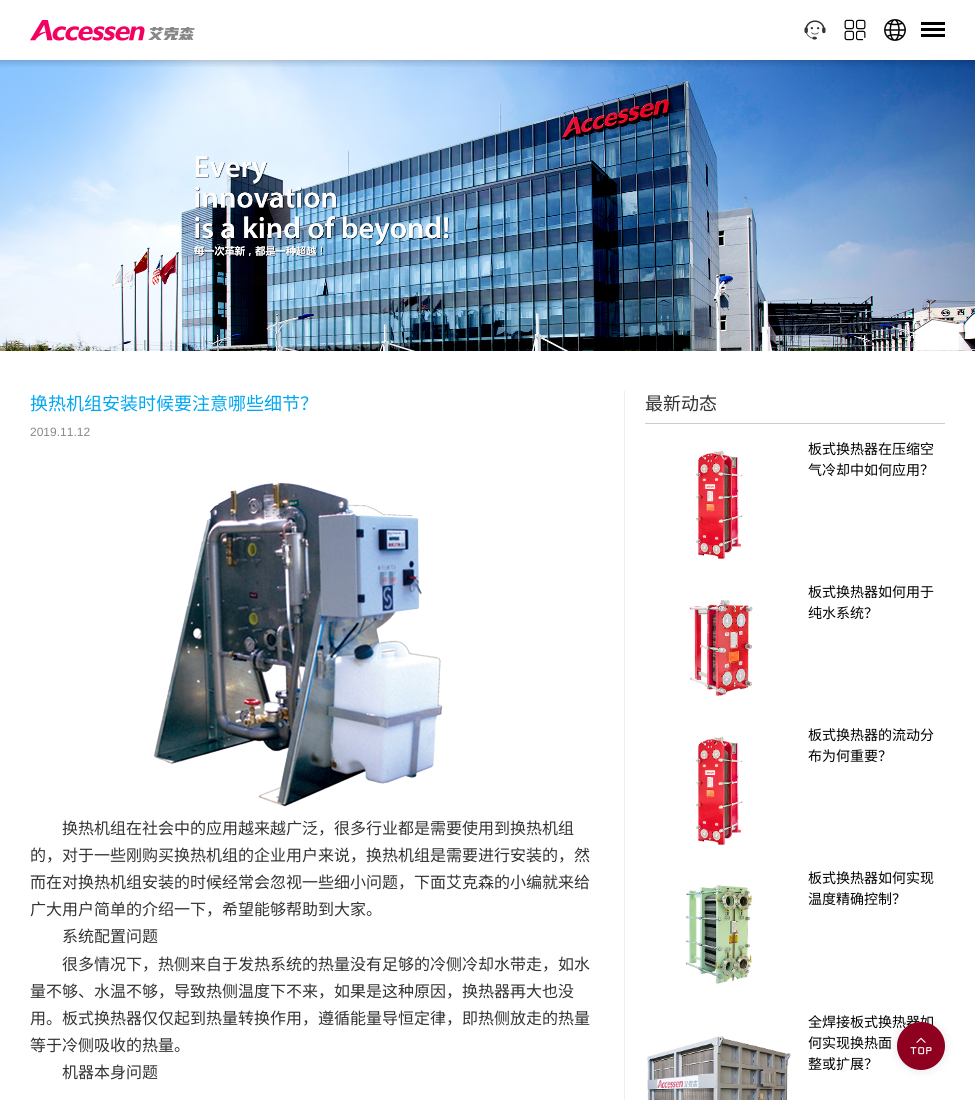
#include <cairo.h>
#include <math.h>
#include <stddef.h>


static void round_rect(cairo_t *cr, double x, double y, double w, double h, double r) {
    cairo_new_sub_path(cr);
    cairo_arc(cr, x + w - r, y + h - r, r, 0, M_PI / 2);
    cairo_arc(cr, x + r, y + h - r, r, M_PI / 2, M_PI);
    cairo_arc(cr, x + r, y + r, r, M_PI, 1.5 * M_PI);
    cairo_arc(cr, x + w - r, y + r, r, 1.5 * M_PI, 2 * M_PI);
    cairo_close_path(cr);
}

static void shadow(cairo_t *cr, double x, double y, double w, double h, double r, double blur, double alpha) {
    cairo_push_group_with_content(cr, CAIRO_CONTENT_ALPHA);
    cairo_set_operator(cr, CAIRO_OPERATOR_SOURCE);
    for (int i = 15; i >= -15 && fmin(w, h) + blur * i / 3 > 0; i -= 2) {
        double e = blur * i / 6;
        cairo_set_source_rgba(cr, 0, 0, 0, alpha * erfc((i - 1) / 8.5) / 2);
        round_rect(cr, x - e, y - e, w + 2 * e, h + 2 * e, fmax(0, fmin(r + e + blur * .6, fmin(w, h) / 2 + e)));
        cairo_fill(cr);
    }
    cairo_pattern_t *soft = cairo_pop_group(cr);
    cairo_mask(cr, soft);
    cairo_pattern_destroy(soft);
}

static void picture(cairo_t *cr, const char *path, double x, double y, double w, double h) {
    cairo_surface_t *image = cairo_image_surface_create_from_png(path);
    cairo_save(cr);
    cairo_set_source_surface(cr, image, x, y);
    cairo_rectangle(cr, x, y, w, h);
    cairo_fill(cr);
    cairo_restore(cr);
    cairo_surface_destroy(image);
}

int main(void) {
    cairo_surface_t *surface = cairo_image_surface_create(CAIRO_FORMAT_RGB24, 975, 1100);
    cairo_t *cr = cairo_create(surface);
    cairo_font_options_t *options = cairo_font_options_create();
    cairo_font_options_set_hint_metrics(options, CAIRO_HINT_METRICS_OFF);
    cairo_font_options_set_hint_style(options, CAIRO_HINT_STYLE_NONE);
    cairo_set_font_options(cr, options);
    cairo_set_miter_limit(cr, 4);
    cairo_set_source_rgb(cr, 1, 1, 1);
    cairo_paint(cr);
    picture(cr, "img5.png", 0, 60, 975, 291);
    cairo_save(cr);
    cairo_rectangle(cr, 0, 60, 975, 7);
    cairo_clip(cr);
    cairo_set_source_rgb(cr, 0, 0, 0);
    shadow(cr, 0, 0, 975, 60, 0, 5, 0.3);
    cairo_restore(cr);
    picture(cr, "img1.png", 30, 20, 165, 21);
    picture(cr, "img2.png", 804, 20, 22, 20);
    picture(cr, "img3.png", 844, 19, 22, 22);
    picture(cr, "img4.png", 884, 19, 22, 22);
    cairo_set_source_rgb(cr, 0, 0, 0);
    cairo_rectangle(cr, 921, 28, 24, 3);
    cairo_fill(cr);
    cairo_rectangle(cr, 921, 22, 24, 3);
    cairo_fill(cr);
    cairo_rectangle(cr, 921, 34, 24, 3);
    cairo_fill(cr);
    cairo_set_source_rgb(cr, 0.933, 0.933, 0.933);
    cairo_rectangle(cr, 624, 391, 1, 709);
    cairo_fill(cr);
    cairo_select_font_face(cr, "Noto Sans CJK SC", CAIRO_FONT_SLANT_NORMAL, CAIRO_FONT_WEIGHT_NORMAL);
    cairo_set_font_size(cr, 18);
    cairo_set_source_rgb(cr, 0.008, 0.655, 0.941);
    cairo_move_to(cr, 30, 410);
    cairo_show_text(cr, "换热机组安装时候要注意哪些细节？");
    cairo_select_font_face(cr, "Liberation Sans", CAIRO_FONT_SLANT_NORMAL, CAIRO_FONT_WEIGHT_NORMAL);
    cairo_set_font_size(cr, 12);
    cairo_set_source_rgb(cr, 0.533, 0.533, 0.533);
    cairo_move_to(cr, 30, 436);
    cairo_show_text(cr, "2019.11.12");
    picture(cr, "img6.png", 153, 482, 290, 325);
    cairo_select_font_face(cr, "Noto Sans CJK SC", CAIRO_FONT_SLANT_NORMAL, CAIRO_FONT_WEIGHT_NORMAL);
    cairo_set_font_size(cr, 16);
    cairo_set_source_rgb(cr, 0.2, 0.2, 0.2);
    cairo_move_to(cr, 62, 834);
    cairo_show_text(cr, "换热机组在社会中的应用越来越广泛，很多行业都是需要使用到换热机组");
    cairo_move_to(cr, 30, 861);
    cairo_show_text(cr, "的，对于一些刚购买换热机组的企业用户来说，换热机组是需要进行安装的，然");
    cairo_move_to(cr, 30, 888);
    cairo_show_text(cr, "而在对换热机组安装的时候经常会忽视一些细小问题，下面艾克森的小编就来给");
    cairo_move_to(cr, 30, 915);
    cairo_show_text(cr, "广大用户简单的介绍一下，希望能够帮助到大家。");
    cairo_move_to(cr, 62, 942);
    cairo_show_text(cr, "系统配置问题");
    cairo_move_to(cr, 62, 970);
    cairo_show_text(cr, "很多情况下，热侧来自于发热系统的热量没有足够的冷侧冷却水带走，如水");
    cairo_move_to(cr, 30, 997);
    cairo_show_text(cr, "量不够、水温不够，导致热侧温度下不来，如果是这种原因，换热器再大也没");
    cairo_move_to(cr, 30, 1024);
    cairo_show_text(cr, "用。板式换热器仅仅起到热量转换作用，遵循能量导恒定律，即热侧放走的热量");
    cairo_move_to(cr, 30, 1051);
    cairo_show_text(cr, "等于冷侧吸收的热量。");
    cairo_move_to(cr, 62, 1078);
    cairo_show_text(cr, "机器本身问题");
    cairo_set_source_rgb(cr, 0.8, 0.8, 0.8);
    cairo_rectangle(cr, 645, 423, 300, 1);
    cairo_fill(cr);
    cairo_set_font_size(cr, 18);
    cairo_set_source_rgb(cr, 0.2, 0.2, 0.2);
    cairo_move_to(cr, 645, 410);
    cairo_show_text(cr, "最新动态");
    picture(cr, "img7.png", 695, 450, 48, 110);
    cairo_set_font_size(cr, 14);
    cairo_set_source_rgb(cr, 0, 0, 0);
    cairo_move_to(cr, 808, 454);
    cairo_show_text(cr, "板式换热器在压缩空");
    cairo_move_to(cr, 808, 475);
    cairo_show_text(cr, "气冷却中如何应用？");
    picture(cr, "img8.png", 689, 600, 64, 96);
    cairo_move_to(cr, 808, 597);
    cairo_show_text(cr, "板式换热器如何用于");
    cairo_move_to(cr, 808, 618);
    cairo_show_text(cr, "纯水系统？");
    picture(cr, "img7.png", 695, 736, 48, 110);
    cairo_move_to(cr, 808, 740);
    cairo_show_text(cr, "板式换热器的流动分");
    cairo_move_to(cr, 808, 761);
    cairo_show_text(cr, "布为何重要？");
    picture(cr, "img9.png", 685, 884, 68, 100);
    cairo_move_to(cr, 808, 883);
    cairo_show_text(cr, "板式换热器如何实现");
    cairo_move_to(cr, 808, 904);
    cairo_show_text(cr, "温度精确控制？");
    picture(cr, "img10.png", 647, 1036, 144, 64);
    cairo_move_to(cr, 808, 1027);
    cairo_show_text(cr, "全焊接板式换热器如");
    cairo_move_to(cr, 808, 1048);
    cairo_show_text(cr, "何实现换热面");
    cairo_move_to(cr, 808, 1069);
    cairo_show_text(cr, "整或扩展？");
    cairo_set_source_rgb(cr, 0, 0, 0);
    shadow(cr, 897, 1022, 48, 48, 24, 5, 0.1);
    cairo_set_source_rgb(cr, 0.561, 0, 0.125);
    cairo_arc(cr, 921, 1046, 24, 0, 2 * M_PI);
    cairo_fill(cr);
    picture(cr, "img11.png", 910, 1037, 22, 18);
    cairo_surface_write_to_png(surface, "page.png");
    cairo_font_options_destroy(options);
    cairo_destroy(cr);
    cairo_surface_destroy(surface);
    return 0;
}
